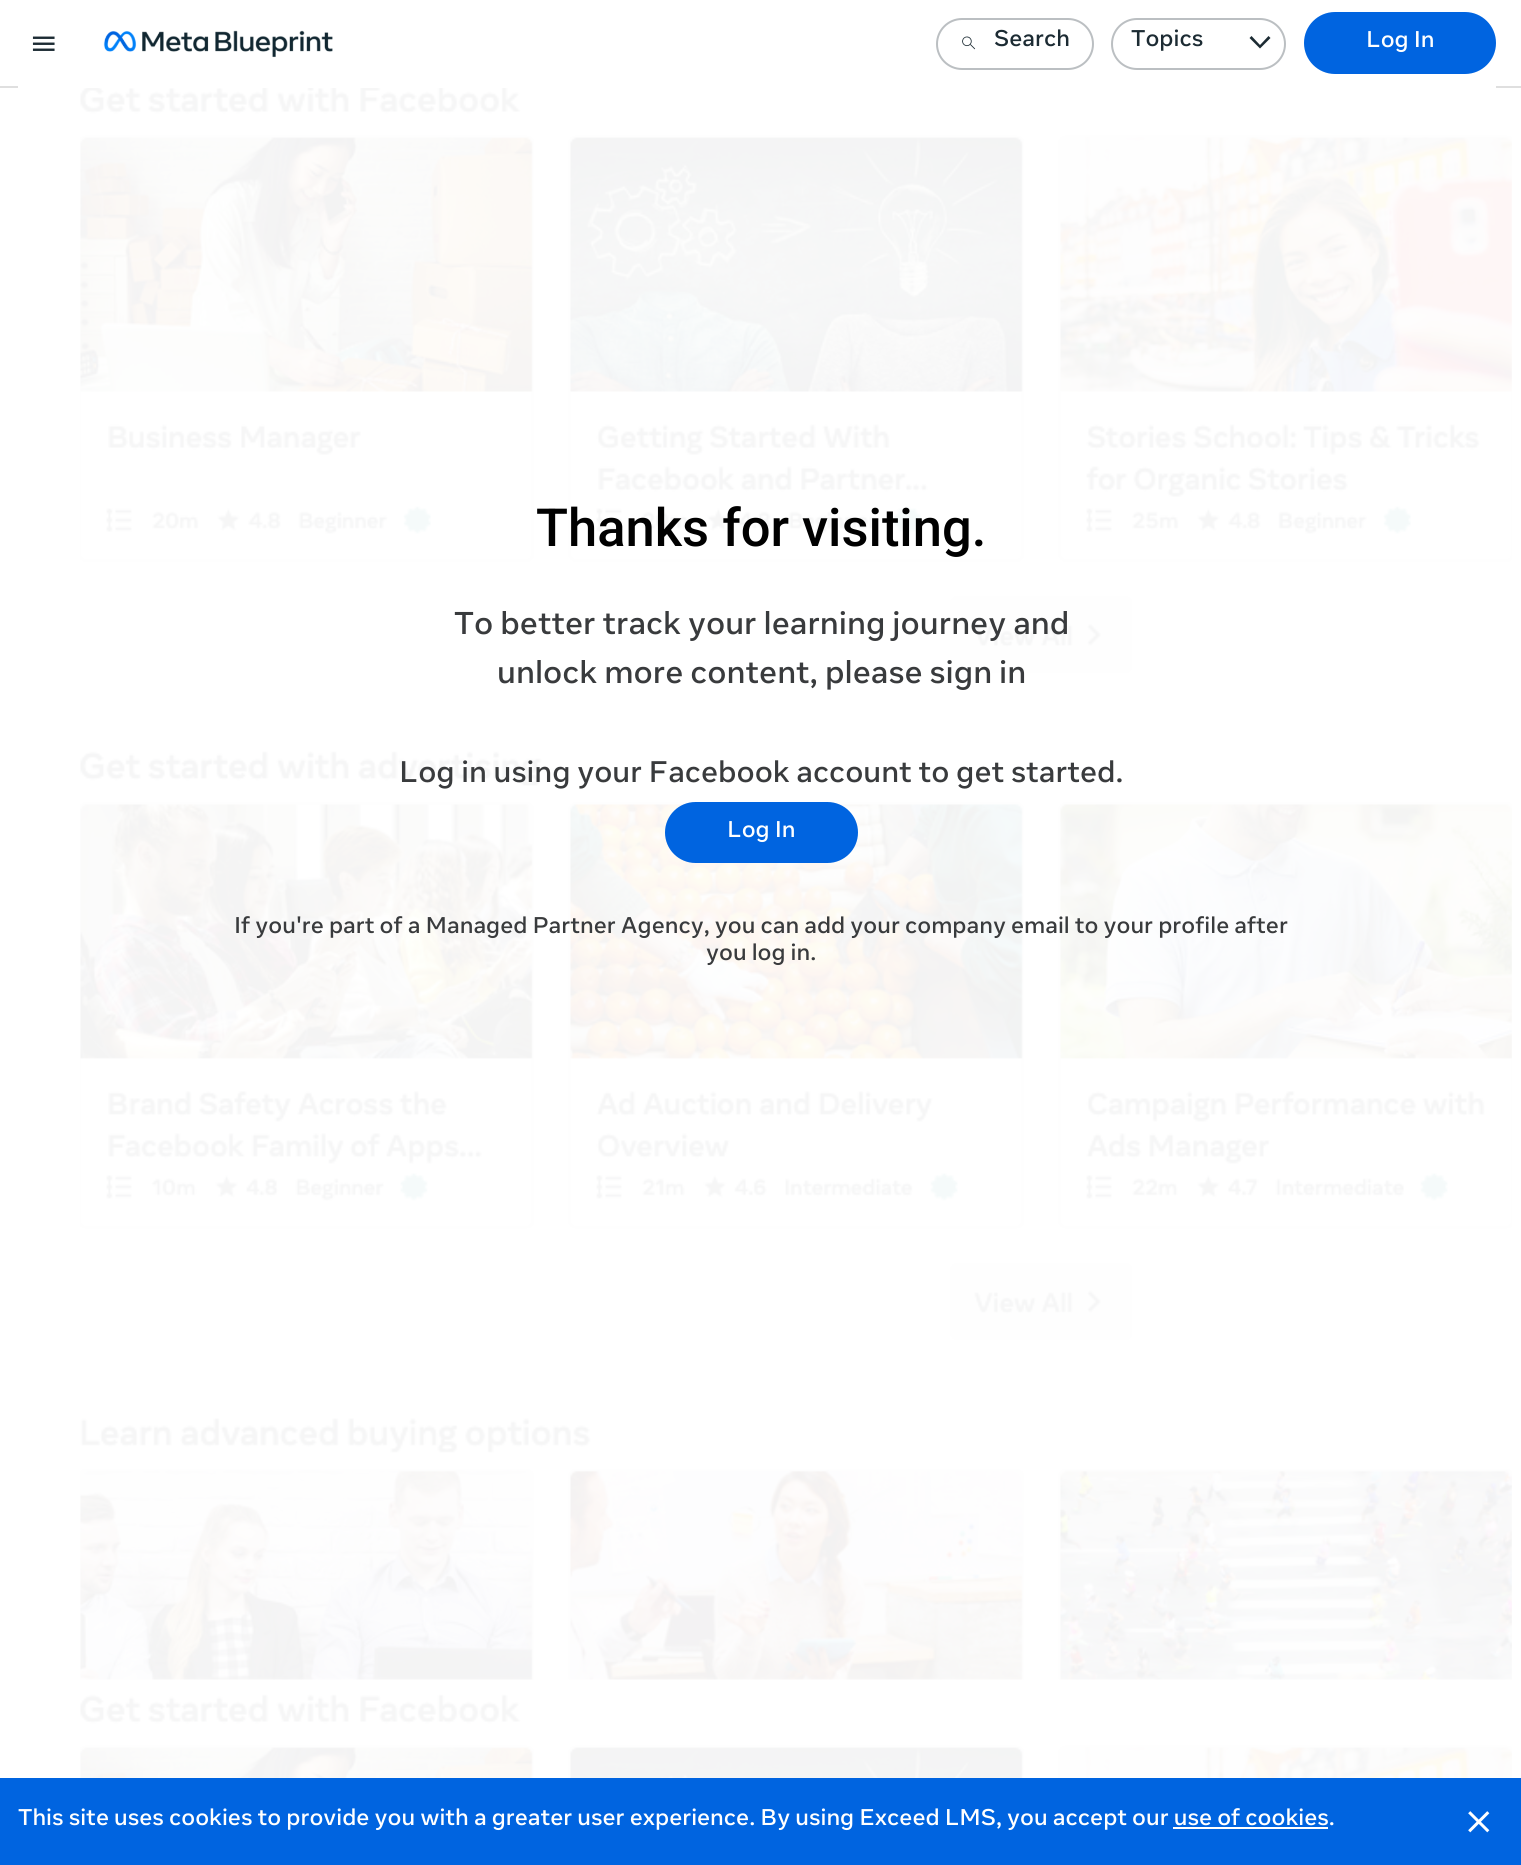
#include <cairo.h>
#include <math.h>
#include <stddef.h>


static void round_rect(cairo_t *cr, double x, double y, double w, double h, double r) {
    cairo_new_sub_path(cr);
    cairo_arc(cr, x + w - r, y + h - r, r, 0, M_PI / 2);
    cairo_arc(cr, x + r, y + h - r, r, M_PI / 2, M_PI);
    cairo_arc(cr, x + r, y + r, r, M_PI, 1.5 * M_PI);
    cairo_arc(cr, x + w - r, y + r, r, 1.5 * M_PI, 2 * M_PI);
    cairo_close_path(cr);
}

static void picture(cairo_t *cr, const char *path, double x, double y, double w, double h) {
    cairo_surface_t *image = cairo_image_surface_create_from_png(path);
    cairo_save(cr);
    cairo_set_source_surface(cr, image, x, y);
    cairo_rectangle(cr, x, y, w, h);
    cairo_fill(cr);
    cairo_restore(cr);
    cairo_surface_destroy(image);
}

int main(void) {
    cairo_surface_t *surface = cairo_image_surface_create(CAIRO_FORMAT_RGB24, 1521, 1865);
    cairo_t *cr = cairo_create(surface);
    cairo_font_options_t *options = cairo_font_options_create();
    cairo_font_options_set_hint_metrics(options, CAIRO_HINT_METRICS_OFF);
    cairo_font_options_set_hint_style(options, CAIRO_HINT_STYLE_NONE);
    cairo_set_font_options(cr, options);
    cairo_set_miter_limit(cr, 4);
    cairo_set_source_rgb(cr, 1, 1, 1);
    cairo_paint(cr);
    cairo_set_source_rgb(cr, 0.875, 0.875, 0.875);
    cairo_rectangle(cr, 0, 86, 1521, 2);
    cairo_fill(cr);
    round_rect(cr, 937, 19, 156, 50, 25);
    cairo_set_source_rgb(cr, 0.733, 0.749, 0.761);
    cairo_stroke(cr);
    picture(cr, "img1.png", 962, 36, 14, 14);
    cairo_select_font_face(cr, "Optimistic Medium", CAIRO_FONT_SLANT_NORMAL, CAIRO_FONT_WEIGHT_NORMAL);
    cairo_set_font_size(cr, 22.75);
    cairo_set_source_rgb(cr, 0.11, 0.169, 0.2);
    cairo_move_to(cr, 994, 46);
    cairo_show_text(cr, "Search");
    round_rect(cr, 1112, 19, 173, 50, 25);
    cairo_set_source_rgb(cr, 0.733, 0.749, 0.761);
    cairo_stroke(cr);
    cairo_set_source_rgb(cr, 0.11, 0.169, 0.2);
    cairo_move_to(cr, 1131, 46);
    cairo_show_text(cr, "Topics");
    cairo_new_path(cr);
    cairo_move_to(cr, 1251.5, 36);
    cairo_line_to(cr, 1260, 45);
    cairo_line_to(cr, 1268.5, 36);
    cairo_line_to(cr, 1270.5, 38);
    cairo_line_to(cr, 1260, 48.5);
    cairo_line_to(cr, 1249.5, 38);
    cairo_close_path(cr);
    cairo_fill(cr);
    cairo_set_source_rgb(cr, 0, 0.392, 0.878);
    round_rect(cr, 1305, 13, 190, 60, 30);
    cairo_fill_preserve(cr);
    cairo_stroke(cr);
    cairo_set_source_rgb(cr, 1, 1, 1);
    cairo_move_to(cr, 1366, 47);
    cairo_show_text(cr, "Log In");
    cairo_rectangle(cr, 18, 86, 1478, 2);
    cairo_fill(cr);
    picture(cr, "img2.png", 32, 36, 23, 15);
    picture(cr, "img3.png", 103, 30, 230, 28);
    picture(cr, "img4.png", 80, 88, 1432, 1690);
    cairo_select_font_face(cr, "Roboto Medium", CAIRO_FONT_SLANT_NORMAL, CAIRO_FONT_WEIGHT_NORMAL);
    cairo_set_font_size(cr, 52.5);
    cairo_set_source_rgb(cr, 0, 0, 0);
    cairo_move_to(cr, 536, 546);
    cairo_show_text(cr, "Thanks for visiting.");
    cairo_select_font_face(cr, "Optimistic Medium", CAIRO_FONT_SLANT_NORMAL, CAIRO_FONT_WEIGHT_NORMAL);
    cairo_set_font_size(cr, 31.5);
    cairo_set_source_rgb(cr, 0.224, 0.231, 0.239);
    cairo_move_to(cr, 454, 634);
    cairo_show_text(cr, "To better track your learning journey and");
    cairo_move_to(cr, 497, 683);
    cairo_show_text(cr, "unlock more content, please sign in");
    cairo_set_font_size(cr, 29.75);
    cairo_move_to(cr, 399, 782);
    cairo_show_text(cr, "Log in using your Facebook account to get started.");
    cairo_set_source_rgb(cr, 0, 0.392, 0.878);
    round_rect(cr, 666, 803, 191, 59, 29.5);
    cairo_fill_preserve(cr);
    cairo_stroke(cr);
    cairo_set_font_size(cr, 22.75);
    cairo_set_source_rgb(cr, 1, 1, 1);
    cairo_move_to(cr, 727, 837);
    cairo_show_text(cr, "Log In");
    cairo_set_source_rgb(cr, 0.224, 0.231, 0.239);
    cairo_move_to(cr, 234, 933);
    cairo_show_text(cr, "If you're part of a Managed Partner Agency, you can add your company email to your profile after");
    cairo_move_to(cr, 706, 960);
    cairo_show_text(cr, "you log in.");
    cairo_set_source_rgb(cr, 0, 0.392, 0.878);
    cairo_rectangle(cr, 0, 1778, 1521, 87);
    cairo_fill(cr);
    cairo_set_source_rgb(cr, 1, 1, 1);
    cairo_move_to(cr, 18, 1825);
    cairo_show_text(cr, "This site uses cookies to provide you with a greater user experience. By using Exceed LMS, you accept our use of cookies.");
    cairo_rectangle(cr, 1173, 1827, 155, 2);
    cairo_fill(cr);
    picture(cr, "img5.png", 1468, 1811, 22, 22);
    cairo_surface_write_to_png(surface, "page.png");
    cairo_font_options_destroy(options);
    cairo_destroy(cr);
    cairo_surface_destroy(surface);
    return 0;
}
